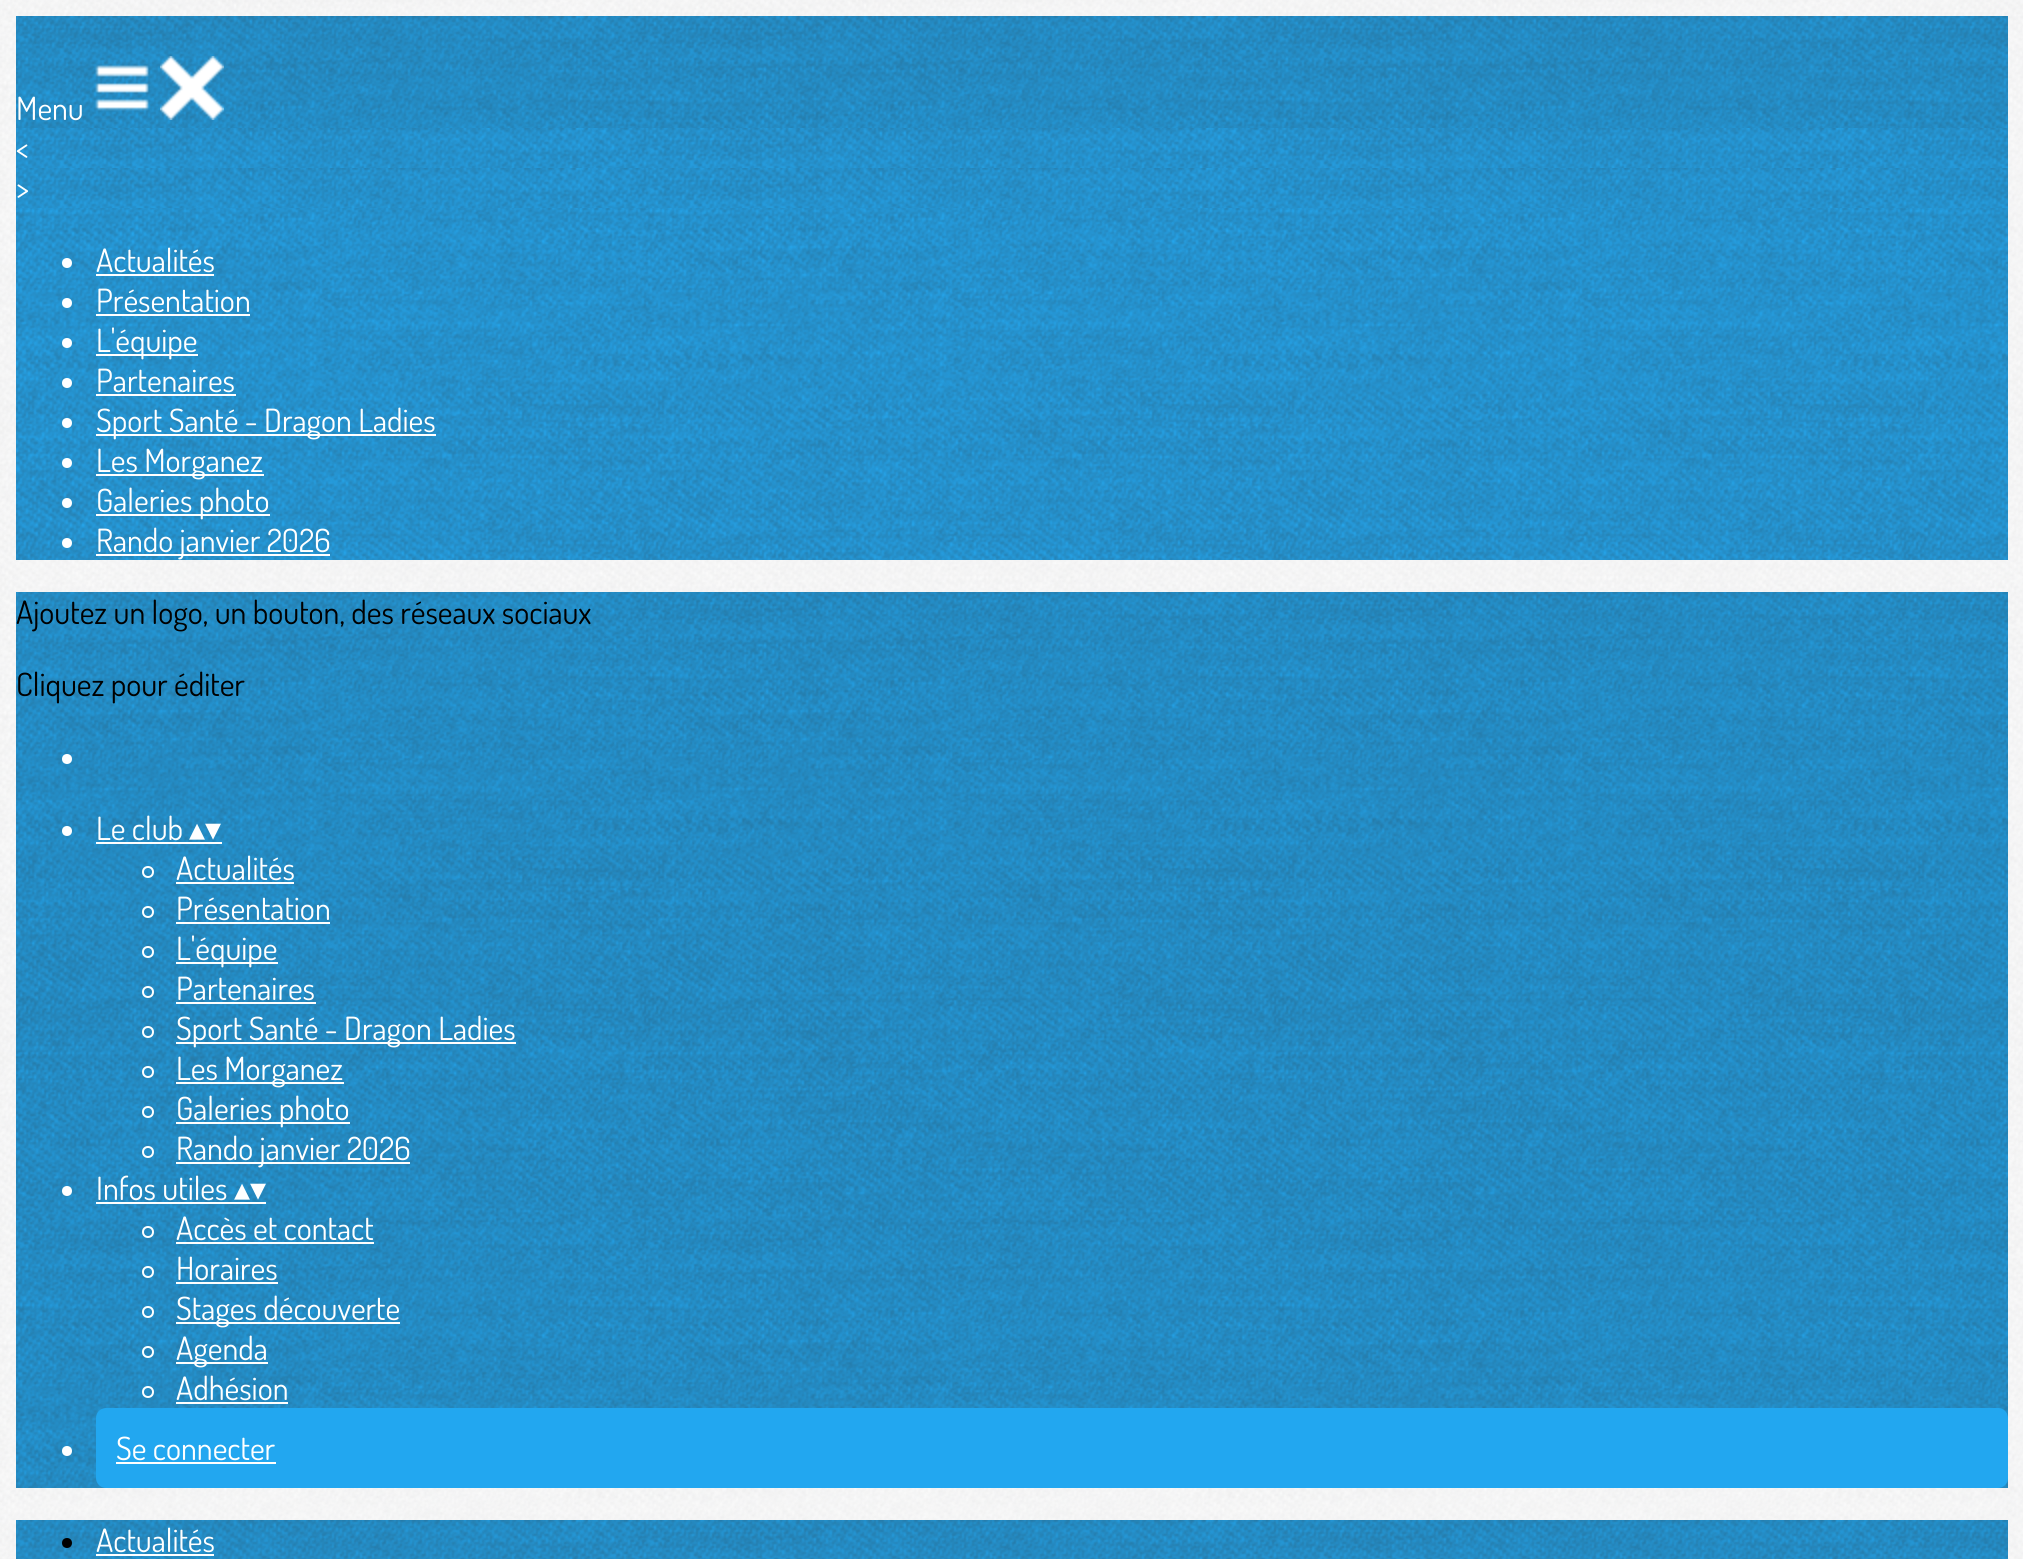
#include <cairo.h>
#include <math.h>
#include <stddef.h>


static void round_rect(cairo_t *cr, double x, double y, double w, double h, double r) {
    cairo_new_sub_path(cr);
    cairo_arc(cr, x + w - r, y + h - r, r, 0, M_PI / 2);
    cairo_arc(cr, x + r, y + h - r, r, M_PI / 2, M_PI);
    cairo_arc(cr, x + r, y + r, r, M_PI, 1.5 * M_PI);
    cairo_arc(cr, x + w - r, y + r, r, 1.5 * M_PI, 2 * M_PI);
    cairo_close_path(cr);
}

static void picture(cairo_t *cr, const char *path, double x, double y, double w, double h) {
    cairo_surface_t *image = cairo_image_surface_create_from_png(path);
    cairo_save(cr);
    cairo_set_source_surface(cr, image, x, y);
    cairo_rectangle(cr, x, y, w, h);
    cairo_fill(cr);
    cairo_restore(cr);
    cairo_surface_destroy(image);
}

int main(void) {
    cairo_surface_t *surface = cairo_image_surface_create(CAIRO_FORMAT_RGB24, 2023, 1559);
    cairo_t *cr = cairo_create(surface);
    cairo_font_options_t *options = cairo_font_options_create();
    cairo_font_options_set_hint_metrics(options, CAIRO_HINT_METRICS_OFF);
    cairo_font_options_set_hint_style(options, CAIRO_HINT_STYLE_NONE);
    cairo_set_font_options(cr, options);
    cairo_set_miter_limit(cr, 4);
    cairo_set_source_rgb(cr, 1, 1, 1);
    cairo_paint(cr);
    picture(cr, "img1.png", 0, 0, 2023, 1559);
    cairo_set_source_rgb(cr, 0.133, 0.655, 0.941);
    cairo_rectangle(cr, 16, 16, 1992, 112);
    cairo_fill(cr);
    picture(cr, "img2.png", 16, 16, 1992, 112);
    cairo_select_font_face(cr, "Dosis", CAIRO_FONT_SLANT_NORMAL, CAIRO_FONT_WEIGHT_NORMAL);
    cairo_set_font_size(cr, 32);
    cairo_set_source_rgb(cr, 1, 1, 1);
    cairo_move_to(cr, 16, 120);
    cairo_show_text(cr, "Menu");
    picture(cr, "img3.png", 95, 65, 54, 55);
    picture(cr, "img4.png", 160, 56, 64, 64);
    cairo_set_source_rgb(cr, 0.137, 0.686, 0.988);
    cairo_rectangle(cr, 16, 208, 1992, 352);
    cairo_fill(cr);
    picture(cr, "img5.png", 16, 208, 1992, 352);
    cairo_rectangle(cr, 16, 128, 1992, 80);
    cairo_fill(cr);
    picture(cr, "img6.png", 16, 128, 1992, 40);
    cairo_set_source_rgb(cr, 1, 1, 1);
    cairo_move_to(cr, 16, 160);
    cairo_show_text(cr, "<");
    picture(cr, "img6.png", 16, 168, 1992, 40);
    cairo_move_to(cr, 16, 200);
    cairo_show_text(cr, ">");
    cairo_new_path(cr);
    cairo_arc(cr, 67, 263, 5, 0, 2 * M_PI);
    cairo_fill(cr);
    cairo_move_to(cr, 96, 272);
    cairo_show_text(cr, "Actualités");
    cairo_rectangle(cr, 96, 274, 118, 2);
    cairo_fill(cr);
    cairo_arc(cr, 67, 303, 5, 0, 2 * M_PI);
    cairo_fill(cr);
    cairo_move_to(cr, 96, 312);
    cairo_show_text(cr, "Présentation");
    cairo_rectangle(cr, 96, 314, 154, 2);
    cairo_fill(cr);
    cairo_arc(cr, 67, 343, 5, 0, 2 * M_PI);
    cairo_fill(cr);
    cairo_rectangle(cr, 96, 354, 102, 2);
    cairo_fill(cr);
    cairo_move_to(cr, 96, 352);
    cairo_show_text(cr, "L'équipe");
    cairo_new_path(cr);
    cairo_arc(cr, 67, 383, 5, 0, 2 * M_PI);
    cairo_fill(cr);
    cairo_move_to(cr, 96, 392);
    cairo_show_text(cr, "Partenaires");
    cairo_rectangle(cr, 96, 394, 140, 2);
    cairo_fill(cr);
    cairo_arc(cr, 67, 423, 5, 0, 2 * M_PI);
    cairo_fill(cr);
    cairo_rectangle(cr, 96, 434, 340, 2);
    cairo_fill(cr);
    cairo_move_to(cr, 96, 432);
    cairo_show_text(cr, "Sport Santé - Dragon Ladies");
    cairo_new_path(cr);
    cairo_arc(cr, 67, 463, 5, 0, 2 * M_PI);
    cairo_fill(cr);
    cairo_rectangle(cr, 96, 474, 168, 2);
    cairo_fill(cr);
    cairo_move_to(cr, 96, 472);
    cairo_show_text(cr, "Les Morganez");
    cairo_new_path(cr);
    cairo_arc(cr, 67, 503, 5, 0, 2 * M_PI);
    cairo_fill(cr);
    cairo_rectangle(cr, 96, 514, 174, 2);
    cairo_fill(cr);
    cairo_move_to(cr, 96, 512);
    cairo_show_text(cr, "Galeries photo");
    cairo_new_path(cr);
    cairo_arc(cr, 67, 543, 5, 0, 2 * M_PI);
    cairo_fill(cr);
    cairo_rectangle(cr, 96, 554, 234, 2);
    cairo_fill(cr);
    cairo_move_to(cr, 96, 552);
    cairo_show_text(cr, "Rando janvier 2026");
    cairo_set_source_rgb(cr, 0.133, 0.655, 0.941);
    cairo_rectangle(cr, 16, 592, 1992, 896);
    cairo_fill(cr);
    picture(cr, "img7.png", 16, 592, 1992, 896);
    cairo_set_source_rgb(cr, 0, 0, 0);
    cairo_move_to(cr, 16, 624);
    cairo_show_text(cr, "Ajoutez un logo, un bouton, des réseaux sociaux");
    cairo_move_to(cr, 16, 696);
    cairo_show_text(cr, "Cliquez pour éditer");
    cairo_set_source_rgb(cr, 1, 1, 1);
    cairo_new_path(cr);
    cairo_arc(cr, 67, 759, 5, 0, 2 * M_PI);
    cairo_fill(cr);
    cairo_arc(cr, 67, 831, 5, 0, 2 * M_PI);
    cairo_fill(cr);
    cairo_move_to(cr, 96, 840);
    cairo_show_text(cr, "Le club");
    cairo_rectangle(cr, 96, 842, 126, 2);
    cairo_fill(cr);
    cairo_select_font_face(cr, "DejaVu Sans", CAIRO_FONT_SLANT_NORMAL, CAIRO_FONT_WEIGHT_NORMAL);
    cairo_move_to(cr, 189, 840);
    cairo_show_text(cr, "▴▾");
    cairo_new_path(cr);
    cairo_arc(cr, 148, 872, 5, 0, 2 * M_PI);
    cairo_stroke(cr);
    cairo_select_font_face(cr, "Dosis", CAIRO_FONT_SLANT_NORMAL, CAIRO_FONT_WEIGHT_NORMAL);
    cairo_move_to(cr, 176, 880);
    cairo_show_text(cr, "Actualités");
    cairo_rectangle(cr, 176, 882, 118, 2);
    cairo_fill(cr);
    cairo_arc(cr, 148, 912, 5, 0, 2 * M_PI);
    cairo_stroke(cr);
    cairo_move_to(cr, 176, 920);
    cairo_show_text(cr, "Présentation");
    cairo_rectangle(cr, 176, 922, 154, 2);
    cairo_fill(cr);
    cairo_arc(cr, 148, 952, 5, 0, 2 * M_PI);
    cairo_stroke(cr);
    cairo_rectangle(cr, 176, 962, 102, 2);
    cairo_fill(cr);
    cairo_move_to(cr, 176, 960);
    cairo_show_text(cr, "L'équipe");
    cairo_new_path(cr);
    cairo_arc(cr, 148, 992, 5, 0, 2 * M_PI);
    cairo_stroke(cr);
    cairo_move_to(cr, 176, 1000);
    cairo_show_text(cr, "Partenaires");
    cairo_rectangle(cr, 176, 1002, 140, 2);
    cairo_fill(cr);
    cairo_arc(cr, 148, 1032, 5, 0, 2 * M_PI);
    cairo_stroke(cr);
    cairo_rectangle(cr, 176, 1042, 340, 2);
    cairo_fill(cr);
    cairo_move_to(cr, 176, 1040);
    cairo_show_text(cr, "Sport Santé - Dragon Ladies");
    cairo_new_path(cr);
    cairo_arc(cr, 148, 1072, 5, 0, 2 * M_PI);
    cairo_stroke(cr);
    cairo_rectangle(cr, 176, 1082, 168, 2);
    cairo_fill(cr);
    cairo_move_to(cr, 176, 1080);
    cairo_show_text(cr, "Les Morganez");
    cairo_new_path(cr);
    cairo_arc(cr, 148, 1112, 5, 0, 2 * M_PI);
    cairo_stroke(cr);
    cairo_rectangle(cr, 176, 1122, 174, 2);
    cairo_fill(cr);
    cairo_move_to(cr, 176, 1120);
    cairo_show_text(cr, "Galeries photo");
    cairo_new_path(cr);
    cairo_arc(cr, 148, 1152, 5, 0, 2 * M_PI);
    cairo_stroke(cr);
    cairo_rectangle(cr, 176, 1162, 234, 2);
    cairo_fill(cr);
    cairo_move_to(cr, 176, 1160);
    cairo_show_text(cr, "Rando janvier 2026");
    cairo_new_path(cr);
    cairo_arc(cr, 67, 1191, 5, 0, 2 * M_PI);
    cairo_fill(cr);
    cairo_move_to(cr, 96, 1200);
    cairo_show_text(cr, "Infos utiles");
    cairo_rectangle(cr, 96, 1202, 170, 2);
    cairo_fill(cr);
    cairo_select_font_face(cr, "DejaVu Sans", CAIRO_FONT_SLANT_NORMAL, CAIRO_FONT_WEIGHT_NORMAL);
    cairo_move_to(cr, 234, 1200);
    cairo_show_text(cr, "▴▾");
    cairo_new_path(cr);
    cairo_arc(cr, 148, 1232, 5, 0, 2 * M_PI);
    cairo_stroke(cr);
    cairo_select_font_face(cr, "Dosis", CAIRO_FONT_SLANT_NORMAL, CAIRO_FONT_WEIGHT_NORMAL);
    cairo_move_to(cr, 176, 1240);
    cairo_show_text(cr, "Accès et contact");
    cairo_rectangle(cr, 176, 1242, 198, 2);
    cairo_fill(cr);
    cairo_arc(cr, 148, 1272, 5, 0, 2 * M_PI);
    cairo_stroke(cr);
    cairo_move_to(cr, 176, 1280);
    cairo_show_text(cr, "Horaires");
    cairo_rectangle(cr, 176, 1282, 102, 2);
    cairo_fill(cr);
    cairo_arc(cr, 148, 1312, 5, 0, 2 * M_PI);
    cairo_stroke(cr);
    cairo_rectangle(cr, 176, 1322, 224, 2);
    cairo_fill(cr);
    cairo_move_to(cr, 176, 1320);
    cairo_show_text(cr, "Stages découverte");
    cairo_new_path(cr);
    cairo_arc(cr, 148, 1352, 5, 0, 2 * M_PI);
    cairo_stroke(cr);
    cairo_rectangle(cr, 176, 1362, 92, 2);
    cairo_fill(cr);
    cairo_move_to(cr, 176, 1360);
    cairo_show_text(cr, "Agenda");
    cairo_new_path(cr);
    cairo_arc(cr, 148, 1392, 5, 0, 2 * M_PI);
    cairo_stroke(cr);
    cairo_move_to(cr, 176, 1400);
    cairo_show_text(cr, "Adhésion");
    cairo_rectangle(cr, 176, 1402, 112, 2);
    cairo_fill(cr);
    cairo_arc(cr, 67, 1451, 5, 0, 2 * M_PI);
    cairo_fill(cr);
    cairo_set_source_rgb(cr, 0.133, 0.655, 0.941);
    round_rect(cr, 96, 1408, 1912, 80, 10);
    cairo_fill(cr);
    cairo_set_source_rgb(cr, 1, 1, 1);
    cairo_move_to(cr, 116, 1460);
    cairo_show_text(cr, "Se connecter");
    cairo_rectangle(cr, 116, 1462, 160, 2);
    cairo_fill(cr);
    cairo_set_source_rgb(cr, 0.133, 0.655, 0.941);
    cairo_rectangle(cr, 16, 1520, 1992, 39);
    cairo_fill(cr);
    picture(cr, "img8.png", 16, 1520, 1992, 39);
    cairo_set_source_rgb(cr, 0, 0, 0);
    cairo_arc(cr, 67, 1543, 5, 0, 2 * M_PI);
    cairo_fill(cr);
    cairo_set_source_rgb(cr, 1, 1, 1);
    cairo_move_to(cr, 96, 1552);
    cairo_show_text(cr, "Actualités");
    cairo_rectangle(cr, 96, 1554, 118, 2);
    cairo_fill(cr);
    cairo_surface_write_to_png(surface, "page.png");
    cairo_font_options_destroy(options);
    cairo_destroy(cr);
    cairo_surface_destroy(surface);
    return 0;
}
